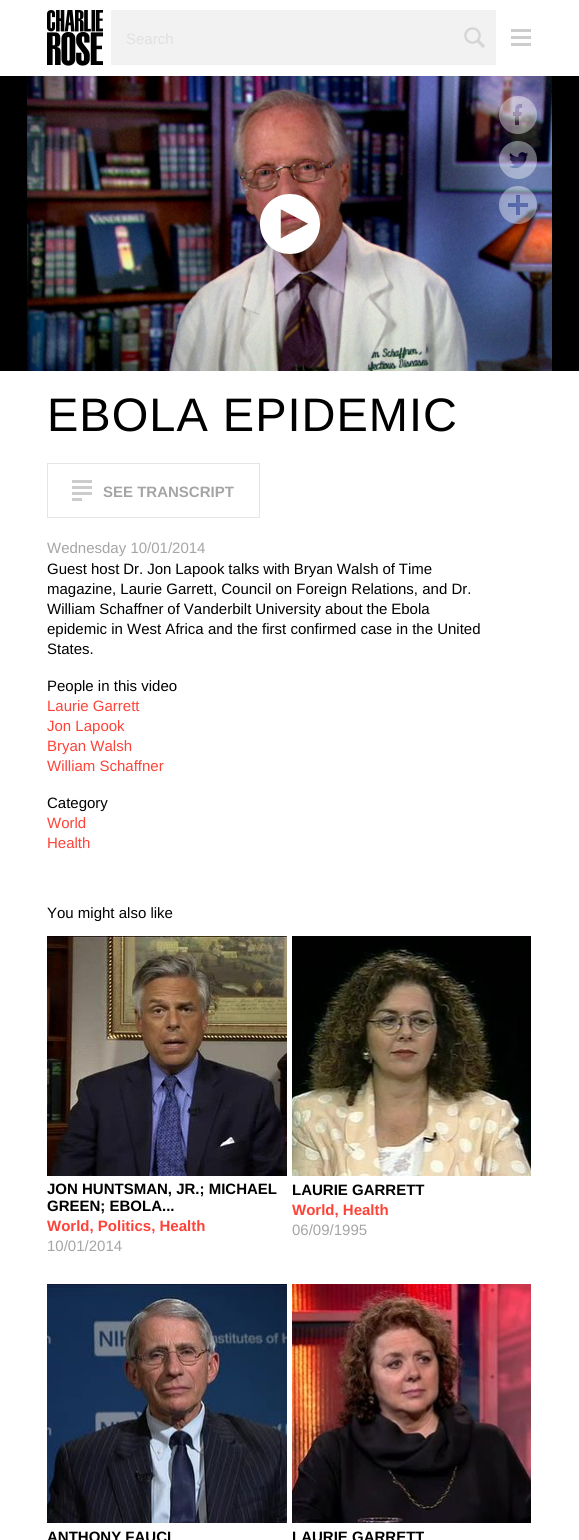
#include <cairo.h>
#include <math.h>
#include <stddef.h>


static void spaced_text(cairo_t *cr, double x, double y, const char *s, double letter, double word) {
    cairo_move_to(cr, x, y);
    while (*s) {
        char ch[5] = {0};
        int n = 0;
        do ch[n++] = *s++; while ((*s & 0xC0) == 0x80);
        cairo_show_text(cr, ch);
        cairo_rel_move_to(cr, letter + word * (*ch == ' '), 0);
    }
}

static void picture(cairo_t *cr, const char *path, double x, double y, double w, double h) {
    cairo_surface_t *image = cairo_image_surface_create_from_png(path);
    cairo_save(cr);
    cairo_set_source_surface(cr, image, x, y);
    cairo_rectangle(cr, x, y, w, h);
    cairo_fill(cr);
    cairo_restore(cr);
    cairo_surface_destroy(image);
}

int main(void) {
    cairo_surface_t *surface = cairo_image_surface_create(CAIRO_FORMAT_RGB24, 579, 1540);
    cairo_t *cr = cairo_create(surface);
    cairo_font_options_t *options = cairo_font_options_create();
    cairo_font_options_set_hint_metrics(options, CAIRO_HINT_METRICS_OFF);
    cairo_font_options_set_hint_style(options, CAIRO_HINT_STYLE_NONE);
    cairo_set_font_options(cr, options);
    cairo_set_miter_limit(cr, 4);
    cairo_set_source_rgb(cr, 1, 1, 1);
    cairo_paint(cr);
    picture(cr, "img1.png", 47, 10, 56, 56);
    cairo_set_source_rgb(cr, 0.949, 0.949, 0.949);
    cairo_rectangle(cr, 111, 10, 385, 55);
    cairo_fill(cr);
    cairo_select_font_face(cr, "Liberation Sans", CAIRO_FONT_SLANT_NORMAL, CAIRO_FONT_WEIGHT_NORMAL);
    cairo_set_font_size(cr, 15);
    cairo_set_source_rgb(cr, 0.878, 0.878, 0.878);
    cairo_move_to(cr, 126, 44);
    cairo_show_text(cr, "Search");
    picture(cr, "img2.png", 464, 27, 21, 21);
    picture(cr, "img3.png", 511, 29, 20, 17);
    cairo_set_source_rgb(cr, 0, 0, 0);
    cairo_rectangle(cr, 0, 76, 27, 295);
    cairo_fill(cr);
    picture(cr, "img4.png", 27, 76, 525, 295);
    cairo_rectangle(cr, 552, 76, 27, 295);
    cairo_fill(cr);
    picture(cr, "img5.png", 499, 96, 38, 38);
    picture(cr, "img6.png", 499, 141, 38, 38);
    picture(cr, "img7.png", 499, 186, 38, 38);
    cairo_set_font_size(cr, 47);
    spaced_text(cr, 47, 431, "EBOLA EPIDEMIC", 1, 0);
    cairo_set_source_rgb(cr, 0.8, 0.8, 0.8);
    cairo_new_path(cr);
    cairo_move_to(cr, 459, 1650);
    cairo_line_to(cr, 479, 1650);
    cairo_line_to(cr, 479, 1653);
    cairo_line_to(cr, 459, 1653);
    cairo_close_path(cr);
    cairo_move_to(cr, 459, 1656);
    cairo_line_to(cr, 479, 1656);
    cairo_line_to(cr, 479, 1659);
    cairo_line_to(cr, 459, 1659);
    cairo_close_path(cr);
    cairo_move_to(cr, 459, 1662);
    cairo_line_to(cr, 479, 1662);
    cairo_line_to(cr, 479, 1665);
    cairo_line_to(cr, 459, 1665);
    cairo_close_path(cr);
    cairo_move_to(cr, 459, 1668);
    cairo_line_to(cr, 469, 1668);
    cairo_line_to(cr, 469, 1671);
    cairo_line_to(cr, 459, 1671);
    cairo_close_path(cr);
    cairo_move_to(cr, 72, 480);
    cairo_line_to(cr, 92, 480);
    cairo_line_to(cr, 92, 483);
    cairo_line_to(cr, 72, 483);
    cairo_close_path(cr);
    cairo_move_to(cr, 72, 486);
    cairo_line_to(cr, 92, 486);
    cairo_line_to(cr, 92, 489);
    cairo_line_to(cr, 72, 489);
    cairo_close_path(cr);
    cairo_move_to(cr, 72, 492);
    cairo_line_to(cr, 92, 492);
    cairo_line_to(cr, 92, 495);
    cairo_line_to(cr, 72, 495);
    cairo_close_path(cr);
    cairo_move_to(cr, 72, 498);
    cairo_line_to(cr, 82, 498);
    cairo_line_to(cr, 82, 501);
    cairo_line_to(cr, 72, 501);
    cairo_close_path(cr);
    cairo_fill(cr);
    cairo_rectangle(cr, 47.5, 463.5, 212, 54);
    cairo_set_source_rgb(cr, 0.898, 0.898, 0.898);
    cairo_set_line_width(cr, 1);
    cairo_stroke(cr);
    cairo_select_font_face(cr, "Liberation Sans", CAIRO_FONT_SLANT_NORMAL, CAIRO_FONT_WEIGHT_BOLD);
    cairo_set_font_size(cr, 15);
    cairo_set_source_rgb(cr, 0.647, 0.647, 0.647);
    cairo_move_to(cr, 103, 497);
    cairo_show_text(cr, "SEE TRANSCRIPT");
    cairo_select_font_face(cr, "Liberation Sans", CAIRO_FONT_SLANT_NORMAL, CAIRO_FONT_WEIGHT_NORMAL);
    cairo_move_to(cr, 47, 553);
    cairo_show_text(cr, "Wednesday 10/01/2014");
    cairo_set_source_rgb(cr, 0, 0, 0);
    spaced_text(cr, 47, 574, "Guest host Dr. Jon Lapook talks with Bryan Walsh of Time", 0, -0.25);
    cairo_move_to(cr, 47, 594);
    cairo_show_text(cr, "magazine, Laurie Garrett, Council on Foreign Relations, and Dr.");
    spaced_text(cr, 47, 614, "William Schaffner of Vanderbilt University about the Ebola", 0, -0.25);
    cairo_move_to(cr, 47, 634);
    cairo_show_text(cr, "epidemic in West Africa and the first confirmed case in the United");
    cairo_move_to(cr, 47, 654);
    cairo_show_text(cr, "States.");
    cairo_move_to(cr, 47, 691);
    cairo_show_text(cr, "People in this video");
    cairo_set_source_rgb(cr, 1, 0.259, 0.216);
    cairo_move_to(cr, 47, 711);
    cairo_show_text(cr, "Laurie Garrett");
    cairo_move_to(cr, 47, 731);
    cairo_show_text(cr, "Jon Lapook");
    cairo_move_to(cr, 47, 751);
    cairo_show_text(cr, "Bryan Walsh");
    cairo_move_to(cr, 47, 771);
    cairo_show_text(cr, "William Schaffner");
    cairo_set_source_rgb(cr, 0, 0, 0);
    cairo_move_to(cr, 47, 808);
    cairo_show_text(cr, "Category");
    cairo_set_source_rgb(cr, 1, 0.259, 0.216);
    cairo_move_to(cr, 47, 828);
    cairo_show_text(cr, "World");
    cairo_move_to(cr, 47, 848);
    cairo_show_text(cr, "Health");
    cairo_set_source_rgb(cr, 0, 0, 0);
    cairo_move_to(cr, 47, 918);
    cairo_show_text(cr, "You might also like");
    picture(cr, "img8.png", 47, 936, 240, 240);
    cairo_select_font_face(cr, "Liberation Sans", CAIRO_FONT_SLANT_NORMAL, CAIRO_FONT_WEIGHT_BOLD);
    cairo_move_to(cr, 47, 1194);
    cairo_show_text(cr, "JON HUNTSMAN, JR.; MICHAEL");
    cairo_move_to(cr, 47, 1211);
    cairo_show_text(cr, "GREEN; EBOLA...");
    cairo_set_source_rgb(cr, 1, 0.259, 0.216);
    cairo_move_to(cr, 47, 1231);
    cairo_show_text(cr, "World, Politics, Health");
    cairo_select_font_face(cr, "Liberation Sans", CAIRO_FONT_SLANT_NORMAL, CAIRO_FONT_WEIGHT_NORMAL);
    cairo_set_source_rgb(cr, 0.647, 0.647, 0.647);
    cairo_move_to(cr, 47, 1251);
    cairo_show_text(cr, "10/01/2014");
    picture(cr, "img9.png", 292, 936, 239, 240);
    cairo_select_font_face(cr, "Liberation Sans", CAIRO_FONT_SLANT_NORMAL, CAIRO_FONT_WEIGHT_BOLD);
    cairo_set_source_rgb(cr, 0, 0, 0);
    cairo_move_to(cr, 292, 1195);
    cairo_show_text(cr, "LAURIE GARRETT");
    cairo_set_source_rgb(cr, 1, 0.259, 0.216);
    cairo_move_to(cr, 292, 1215);
    cairo_show_text(cr, "World, Health");
    cairo_select_font_face(cr, "Liberation Sans", CAIRO_FONT_SLANT_NORMAL, CAIRO_FONT_WEIGHT_NORMAL);
    cairo_set_source_rgb(cr, 0.647, 0.647, 0.647);
    cairo_move_to(cr, 292, 1235);
    cairo_show_text(cr, "06/09/1995");
    picture(cr, "img10.png", 47, 1284, 240, 239);
    cairo_select_font_face(cr, "Liberation Sans", CAIRO_FONT_SLANT_NORMAL, CAIRO_FONT_WEIGHT_BOLD);
    cairo_set_source_rgb(cr, 0, 0, 0);
    cairo_move_to(cr, 47, 1542);
    cairo_show_text(cr, "ANTHONY FAUCI");
    picture(cr, "img11.png", 292, 1284, 239, 239);
    cairo_move_to(cr, 292, 1542);
    cairo_show_text(cr, "LAURIE GARRETT");
    cairo_surface_write_to_png(surface, "page.png");
    cairo_font_options_destroy(options);
    cairo_destroy(cr);
    cairo_surface_destroy(surface);
    return 0;
}
